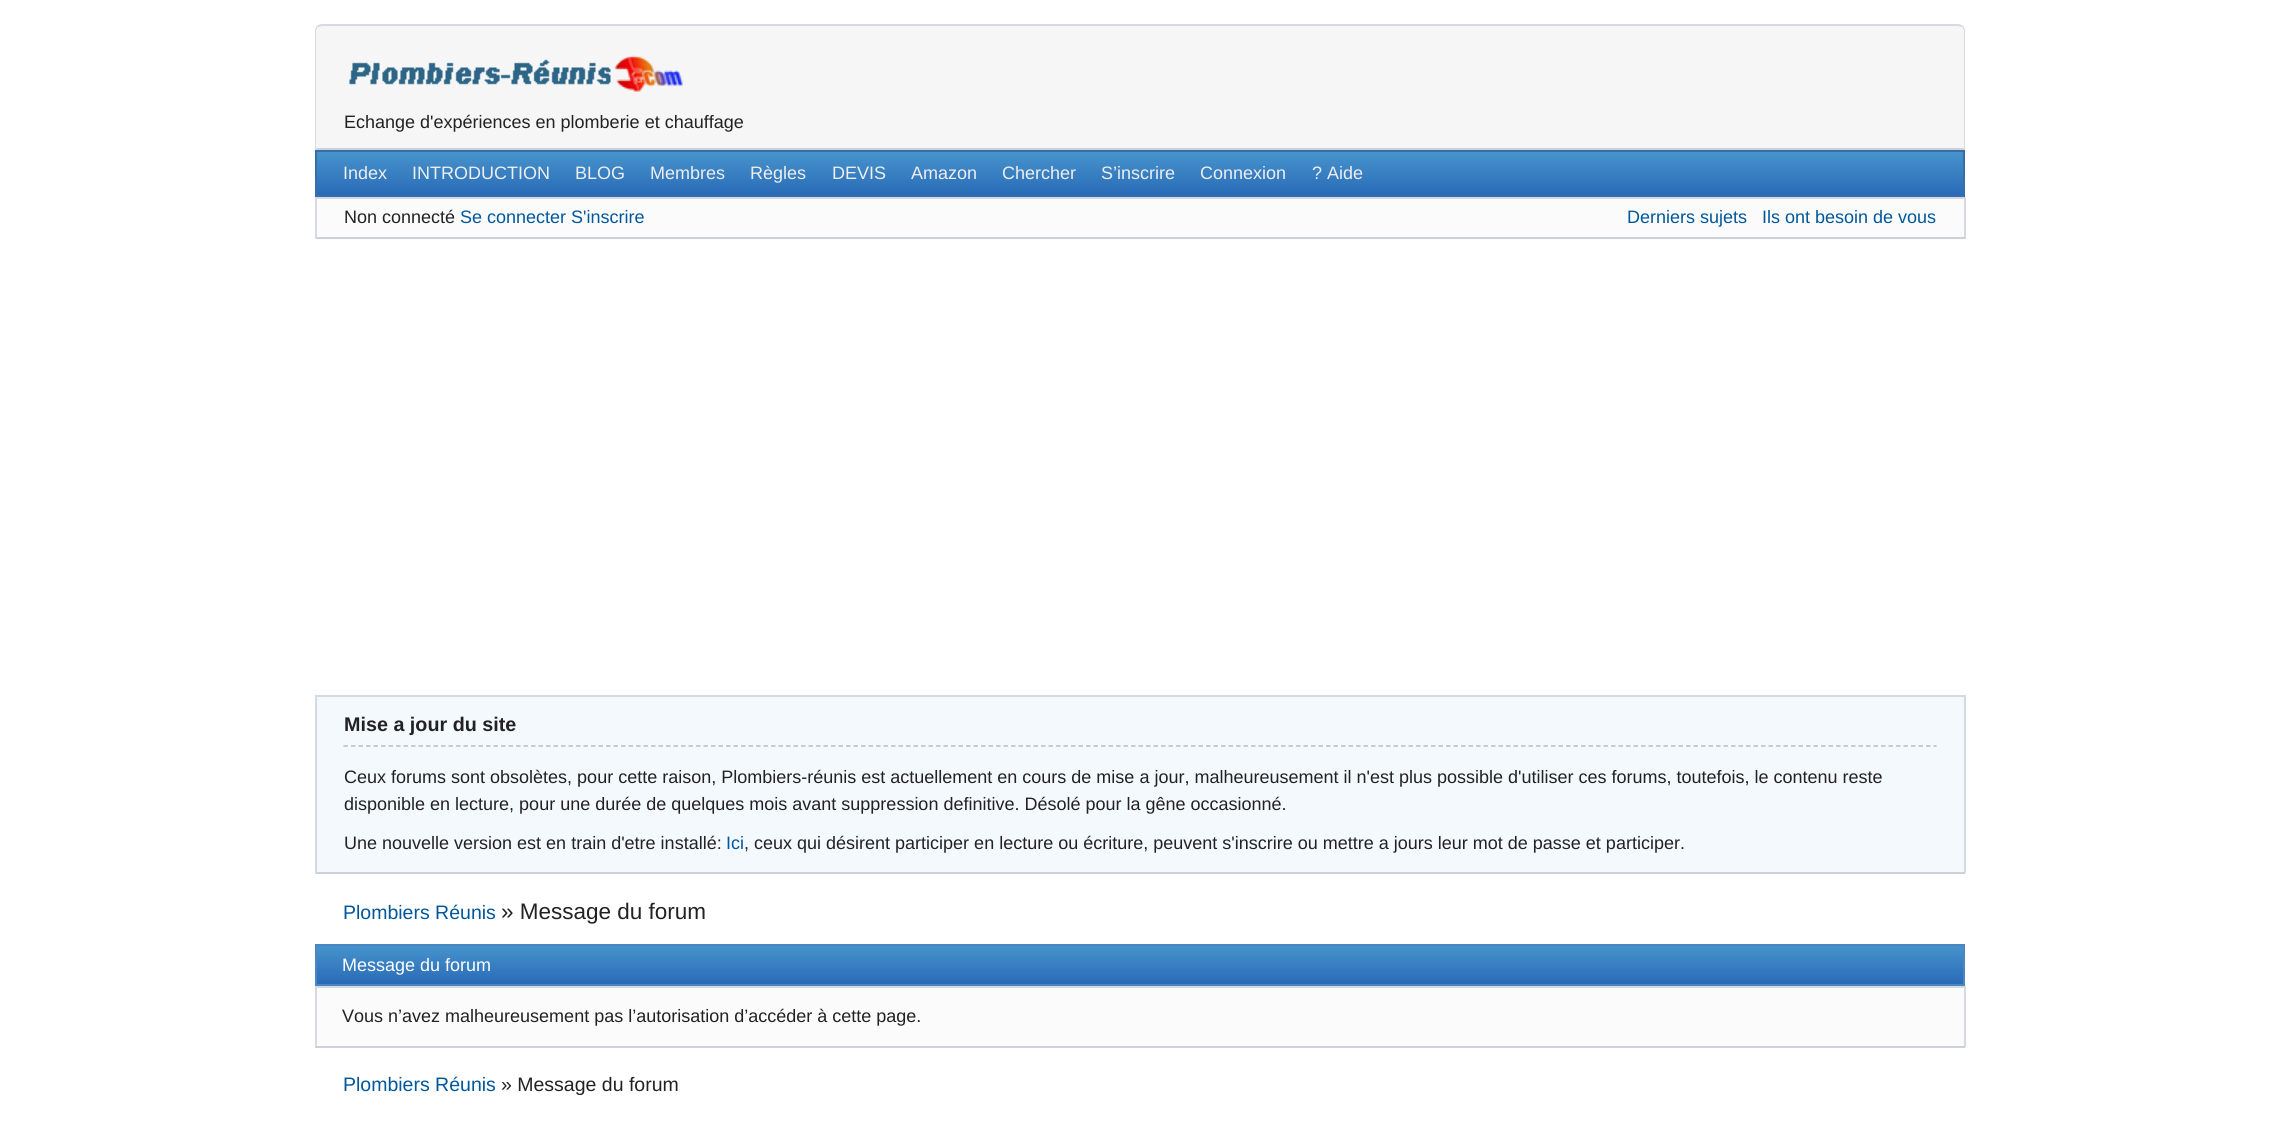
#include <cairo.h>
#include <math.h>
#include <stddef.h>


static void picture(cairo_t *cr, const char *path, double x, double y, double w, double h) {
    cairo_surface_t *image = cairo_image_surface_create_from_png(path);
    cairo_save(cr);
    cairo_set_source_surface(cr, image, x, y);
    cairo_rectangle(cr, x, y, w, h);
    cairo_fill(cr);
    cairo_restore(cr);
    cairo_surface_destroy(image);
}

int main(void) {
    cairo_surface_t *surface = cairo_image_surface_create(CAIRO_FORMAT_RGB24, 2279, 1134);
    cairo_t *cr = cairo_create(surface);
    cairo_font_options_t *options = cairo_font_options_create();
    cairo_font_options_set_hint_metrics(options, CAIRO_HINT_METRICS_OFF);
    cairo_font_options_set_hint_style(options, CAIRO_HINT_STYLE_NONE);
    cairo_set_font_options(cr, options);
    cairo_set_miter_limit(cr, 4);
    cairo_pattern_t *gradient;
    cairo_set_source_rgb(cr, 1, 1, 1);
    cairo_paint(cr);
    cairo_set_source_rgb(cr, 0.961, 0.961, 0.961);
    cairo_new_path(cr);
    cairo_move_to(cr, 323, 24);
    cairo_line_to(cr, 1957, 24);
    cairo_curve_to(cr, 1961.5, 24, 1965, 27.5, 1965, 32);
    cairo_line_to(cr, 1965, 150);
    cairo_line_to(cr, 315, 150);
    cairo_line_to(cr, 315, 32);
    cairo_curve_to(cr, 315, 27.5, 318.5, 24, 323, 24);
    cairo_close_path(cr);
    cairo_fill(cr);
    cairo_set_source_rgb(cr, 0.827, 0.855, 0.882);
    cairo_new_path(cr);
    cairo_move_to(cr, 322, 24);
    cairo_curve_to(cr, 320, 24, 318, 25, 317, 26);
    cairo_line_to(cr, 318, 27);
    cairo_line_to(cr, 322, 26);
    cairo_line_to(cr, 1958, 26);
    cairo_line_to(cr, 1962, 27);
    cairo_line_to(cr, 1963, 26);
    cairo_curve_to(cr, 1962, 25, 1960, 24, 1958, 24);
    cairo_close_path(cr);
    cairo_fill(cr);
    cairo_new_path(cr);
    cairo_move_to(cr, 1965, 150);
    cairo_line_to(cr, 1965, 30);
    cairo_line_to(cr, 1963, 26);
    cairo_line_to(cr, 1962, 27);
    cairo_curve_to(cr, 1963, 28, 1964, 29, 1964, 31);
    cairo_line_to(cr, 1964, 148);
    cairo_line_to(cr, 1963, 148);
    cairo_close_path(cr);
    cairo_fill(cr);
    cairo_set_source_rgb(cr, 0.796, 0.82, 0.847);
    cairo_new_path(cr);
    cairo_move_to(cr, 1965, 150);
    cairo_line_to(cr, 1963, 148);
    cairo_line_to(cr, 317, 148);
    cairo_line_to(cr, 315, 150);
    cairo_close_path(cr);
    cairo_fill(cr);
    cairo_set_source_rgb(cr, 0.827, 0.855, 0.882);
    cairo_new_path(cr);
    cairo_move_to(cr, 315, 150);
    cairo_line_to(cr, 317, 148);
    cairo_line_to(cr, 316, 148);
    cairo_line_to(cr, 316, 31);
    cairo_curve_to(cr, 316, 29, 317, 28, 318, 27);
    cairo_line_to(cr, 317, 26);
    cairo_curve_to(cr, 316, 27, 315, 29, 315, 31);
    cairo_close_path(cr);
    cairo_fill(cr);
    picture(cr, "img1.png", 349, 55, 334, 37);
    cairo_select_font_face(cr, "Liberation Sans", CAIRO_FONT_SLANT_NORMAL, CAIRO_FONT_WEIGHT_NORMAL);
    cairo_set_font_size(cr, 18);
    cairo_set_source_rgb(cr, 0.133, 0.133, 0.133);
    cairo_move_to(cr, 344, 128);
    cairo_show_text(cr, "Echange d'expériences en plomberie et chauffage");
    gradient = cairo_pattern_create_linear(1140, 195, 1140, 152);
    cairo_pattern_add_color_stop_rgba(gradient, 0, 0.165, 0.416, 0.722, 1);
    cairo_pattern_add_color_stop_rgba(gradient, 1, 0.278, 0.584, 0.8, 1);
    cairo_set_source(cr, gradient);
    cairo_pattern_destroy(gradient);
    cairo_rectangle(cr, 317, 152, 1646, 43);
    cairo_fill(cr);
    cairo_rectangle(cr, 316, 151, 1648, 45);
    cairo_set_source_rgb(cr, 0.216, 0.427, 0.667);
    cairo_stroke(cr);
    cairo_set_source_rgb(cr, 0.933, 0.933, 0.933);
    cairo_move_to(cr, 343, 179);
    cairo_show_text(cr, "Index");
    cairo_move_to(cr, 412, 179);
    cairo_show_text(cr, "INTRODUCTION");
    cairo_move_to(cr, 575, 179);
    cairo_show_text(cr, "BLOG");
    cairo_move_to(cr, 650, 179);
    cairo_show_text(cr, "Membres");
    cairo_move_to(cr, 750, 179);
    cairo_show_text(cr, "Règles");
    cairo_move_to(cr, 832, 179);
    cairo_show_text(cr, "DEVIS");
    cairo_move_to(cr, 911, 179);
    cairo_show_text(cr, "Amazon");
    cairo_move_to(cr, 1002, 179);
    cairo_show_text(cr, "Chercher");
    cairo_move_to(cr, 1101, 179);
    cairo_show_text(cr, "S’inscrire");
    cairo_move_to(cr, 1200, 179);
    cairo_show_text(cr, "Connexion");
    cairo_move_to(cr, 1312, 179);
    cairo_show_text(cr, "? Aide");
    cairo_set_source_rgb(cr, 0.984, 0.984, 0.984);
    cairo_rectangle(cr, 317, 199, 1647, 38);
    cairo_fill(cr);
    cairo_set_source_rgb(cr, 0.827, 0.855, 0.882);
    cairo_rectangle(cr, 315, 197, 1650, 2);
    cairo_fill(cr);
    cairo_rectangle(cr, 1964, 197, 2, 42);
    cairo_fill(cr);
    cairo_set_source_rgb(cr, 0.796, 0.82, 0.847);
    cairo_rectangle(cr, 315, 237, 1650, 2);
    cairo_fill(cr);
    cairo_set_source_rgb(cr, 0.827, 0.855, 0.882);
    cairo_rectangle(cr, 315, 197, 2, 42);
    cairo_fill(cr);
    cairo_set_source_rgb(cr, 0.133, 0.133, 0.133);
    cairo_move_to(cr, 344, 223);
    cairo_show_text(cr, "Non connecté");
    cairo_set_source_rgb(cr, 0, 0.341, 0.612);
    cairo_move_to(cr, 460, 223);
    cairo_show_text(cr, "Se connecter S'inscrire");
    cairo_move_to(cr, 1627, 223);
    cairo_show_text(cr, "Derniers sujets");
    cairo_move_to(cr, 1762, 223);
    cairo_show_text(cr, "Ils ont besoin de vous");
    cairo_set_source_rgb(cr, 0.957, 0.976, 0.992);
    cairo_rectangle(cr, 317, 697, 1647, 175);
    cairo_fill(cr);
    cairo_set_source_rgb(cr, 0.827, 0.855, 0.882);
    cairo_rectangle(cr, 315, 695, 1650, 2);
    cairo_fill(cr);
    cairo_rectangle(cr, 1964, 695, 2, 178);
    cairo_fill(cr);
    cairo_set_source_rgb(cr, 0.796, 0.82, 0.847);
    cairo_rectangle(cr, 315, 872, 1650, 2);
    cairo_fill(cr);
    cairo_set_source_rgb(cr, 0.827, 0.855, 0.882);
    cairo_rectangle(cr, 315, 695, 2, 178);
    cairo_fill(cr);
    cairo_new_path(cr);
    cairo_move_to(cr, 343.5, 746);
    cairo_line_to(cr, 1936.5, 746);
    cairo_set_source_rgb(cr, 0.733, 0.733, 0.733);
    cairo_set_line_width(cr, 1.5);
    cairo_set_dash(cr, (double[]){4.5, 3}, 2, 0);
    cairo_stroke(cr);
    cairo_select_font_face(cr, "Liberation Sans", CAIRO_FONT_SLANT_NORMAL, CAIRO_FONT_WEIGHT_BOLD);
    cairo_set_font_size(cr, 19.75);
    cairo_set_source_rgb(cr, 0.133, 0.133, 0.133);
    cairo_move_to(cr, 344, 731);
    cairo_show_text(cr, "Mise a jour du site");
    cairo_select_font_face(cr, "Liberation Sans", CAIRO_FONT_SLANT_NORMAL, CAIRO_FONT_WEIGHT_NORMAL);
    cairo_set_font_size(cr, 18);
    cairo_move_to(cr, 344, 783);
    cairo_show_text(cr, "Ceux forums sont obsolètes, pour cette raison, Plombiers-réunis est actuellement en cours de mise a jour, malheureusement il n'est plus possible d'utiliser ces forums, toutefois, le contenu reste");
    cairo_move_to(cr, 344, 810);
    cairo_show_text(cr, "disponible en lecture, pour une durée de quelques mois avant suppression definitive. Désolé pour la gêne occasionné.");
    cairo_move_to(cr, 344, 849);
    cairo_show_text(cr, "Une nouvelle version est en train d'etre installé:");
    cairo_set_source_rgb(cr, 0, 0.341, 0.612);
    cairo_move_to(cr, 726, 849);
    cairo_show_text(cr, "Ici");
    cairo_set_source_rgb(cr, 0.133, 0.133, 0.133);
    cairo_move_to(cr, 744, 849);
    cairo_show_text(cr, ", ceux qui désirent participer en lecture ou écriture, peuvent s'inscrire ou mettre a jours leur mot de passe et participer.");
    cairo_set_font_size(cr, 19.5);
    cairo_set_source_rgb(cr, 0, 0.341, 0.612);
    cairo_move_to(cr, 343, 919);
    cairo_show_text(cr, "Plombiers Réunis");
    cairo_set_font_size(cr, 22.5);
    cairo_set_source_rgb(cr, 0.133, 0.133, 0.133);
    cairo_move_to(cr, 501, 919);
    cairo_show_text(cr, "» Message du forum");
    gradient = cairo_pattern_create_linear(1140, 984, 1140, 945);
    cairo_pattern_add_color_stop_rgba(gradient, 0, 0.165, 0.416, 0.722, 1);
    cairo_pattern_add_color_stop_rgba(gradient, 1, 0.278, 0.584, 0.8, 1);
    cairo_set_source(cr, gradient);
    cairo_pattern_destroy(gradient);
    cairo_rectangle(cr, 317, 946, 1646, 38);
    cairo_fill(cr);
    cairo_rectangle(cr, 316, 945, 1648, 40);
    cairo_set_source_rgb(cr, 0.29, 0.525, 0.757);
    cairo_set_line_width(cr, 2);
    cairo_set_dash(cr, NULL, 0, 0);
    cairo_stroke(cr);
    cairo_set_font_size(cr, 18);
    cairo_set_source_rgb(cr, 1, 1, 1);
    cairo_move_to(cr, 342, 971);
    cairo_show_text(cr, "Message du forum");
    cairo_set_source_rgb(cr, 0.984, 0.984, 0.984);
    cairo_rectangle(cr, 317, 988, 1647, 58);
    cairo_fill(cr);
    cairo_set_source_rgb(cr, 0.827, 0.855, 0.882);
    cairo_rectangle(cr, 315, 986, 1650, 2);
    cairo_fill(cr);
    cairo_rectangle(cr, 1964, 986, 2, 61);
    cairo_fill(cr);
    cairo_set_source_rgb(cr, 0.796, 0.82, 0.847);
    cairo_rectangle(cr, 315, 1046, 1650, 2);
    cairo_fill(cr);
    cairo_set_source_rgb(cr, 0.827, 0.855, 0.882);
    cairo_rectangle(cr, 315, 986, 2, 61);
    cairo_fill(cr);
    cairo_set_source_rgb(cr, 0.133, 0.133, 0.133);
    cairo_move_to(cr, 342, 1022);
    cairo_show_text(cr, "Vous n’avez malheureusement pas l’autorisation d’accéder à cette page.");
    cairo_set_font_size(cr, 19.5);
    cairo_set_source_rgb(cr, 0, 0.341, 0.612);
    cairo_move_to(cr, 343, 1091);
    cairo_show_text(cr, "Plombiers Réunis");
    cairo_set_source_rgb(cr, 0.133, 0.133, 0.133);
    cairo_move_to(cr, 501, 1091);
    cairo_show_text(cr, "» Message du forum");
    cairo_surface_write_to_png(surface, "page.png");
    cairo_font_options_destroy(options);
    cairo_destroy(cr);
    cairo_surface_destroy(surface);
    return 0;
}
